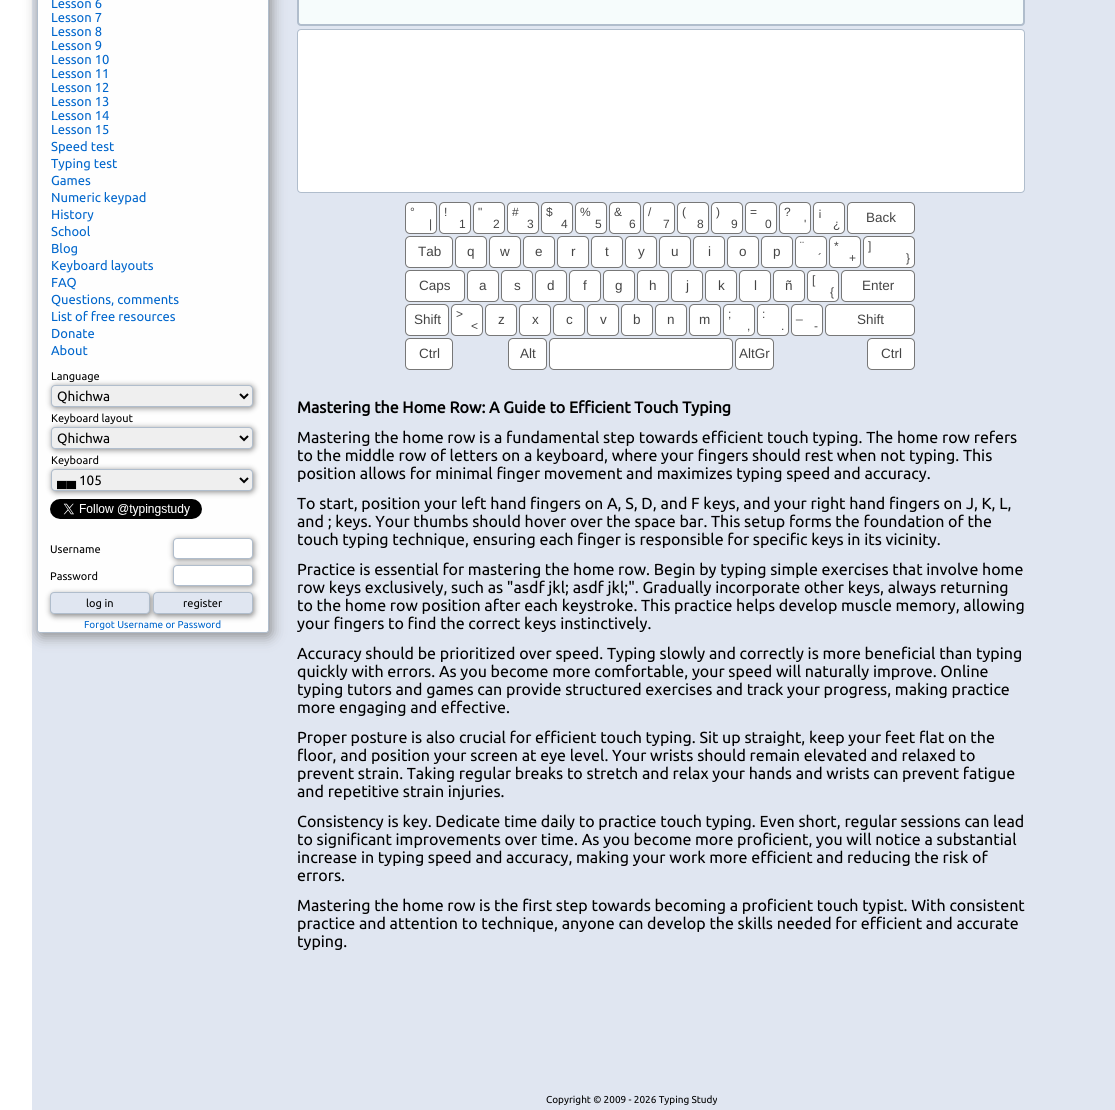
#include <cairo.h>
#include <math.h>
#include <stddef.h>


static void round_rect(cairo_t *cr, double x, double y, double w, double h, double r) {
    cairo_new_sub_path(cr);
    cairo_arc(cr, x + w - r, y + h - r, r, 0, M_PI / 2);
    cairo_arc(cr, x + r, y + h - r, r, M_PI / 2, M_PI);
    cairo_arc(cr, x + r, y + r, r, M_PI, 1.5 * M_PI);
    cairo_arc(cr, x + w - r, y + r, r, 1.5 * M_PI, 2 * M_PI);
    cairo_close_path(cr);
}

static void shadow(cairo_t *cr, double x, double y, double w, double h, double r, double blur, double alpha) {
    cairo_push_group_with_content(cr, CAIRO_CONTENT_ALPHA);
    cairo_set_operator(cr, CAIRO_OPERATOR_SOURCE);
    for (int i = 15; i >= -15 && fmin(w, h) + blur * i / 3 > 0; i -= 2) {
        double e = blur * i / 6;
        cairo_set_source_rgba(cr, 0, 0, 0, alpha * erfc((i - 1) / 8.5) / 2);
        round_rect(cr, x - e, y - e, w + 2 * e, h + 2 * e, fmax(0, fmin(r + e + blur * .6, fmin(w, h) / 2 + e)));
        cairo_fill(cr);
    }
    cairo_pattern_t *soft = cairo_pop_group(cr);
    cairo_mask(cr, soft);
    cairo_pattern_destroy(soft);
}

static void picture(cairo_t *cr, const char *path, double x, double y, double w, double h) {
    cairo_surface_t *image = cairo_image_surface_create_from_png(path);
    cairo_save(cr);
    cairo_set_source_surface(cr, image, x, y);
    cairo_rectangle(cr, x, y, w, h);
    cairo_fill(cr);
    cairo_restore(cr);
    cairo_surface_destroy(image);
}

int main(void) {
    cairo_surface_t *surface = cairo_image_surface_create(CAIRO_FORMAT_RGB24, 1115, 1110);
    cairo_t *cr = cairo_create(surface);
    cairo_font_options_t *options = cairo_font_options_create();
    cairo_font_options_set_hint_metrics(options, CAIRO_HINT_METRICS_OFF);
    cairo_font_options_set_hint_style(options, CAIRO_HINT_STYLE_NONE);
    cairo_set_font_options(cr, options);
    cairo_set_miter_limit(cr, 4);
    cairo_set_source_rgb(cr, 1, 1, 1);
    cairo_paint(cr);
    cairo_set_source_rgb(cr, 0.878, 0.902, 0.945);
    cairo_rectangle(cr, 32, 0, 1083, 1110);
    cairo_fill(cr);
    cairo_set_source_rgb(cr, 0.533, 0.533, 0.533);
    shadow(cr, 39, -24, 232, 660, 3, 7, 1);
    cairo_set_source_rgb(cr, 0.996, 0.996, 0.996);
    round_rect(cr, 37.5, -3.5, 231, 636, 2.5);
    cairo_fill_preserve(cr);
    cairo_set_source_rgb(cr, 0.69, 0.741, 0.8);
    cairo_set_line_width(cr, 1);
    cairo_stroke(cr);
    cairo_select_font_face(cr, "Ubuntu", CAIRO_FONT_SLANT_NORMAL, CAIRO_FONT_WEIGHT_NORMAL);
    cairo_set_font_size(cr, 13);
    cairo_set_source_rgb(cr, 0, 0.4, 0.8);
    cairo_move_to(cr, 51, 8);
    cairo_show_text(cr, "Lesson 6");
    cairo_move_to(cr, 51, 22);
    cairo_show_text(cr, "Lesson 7");
    cairo_move_to(cr, 51, 36);
    cairo_show_text(cr, "Lesson 8");
    cairo_move_to(cr, 51, 50);
    cairo_show_text(cr, "Lesson 9");
    cairo_move_to(cr, 51, 64);
    cairo_show_text(cr, "Lesson 10");
    cairo_move_to(cr, 51, 78);
    cairo_show_text(cr, "Lesson 11");
    cairo_move_to(cr, 51, 92);
    cairo_show_text(cr, "Lesson 12");
    cairo_move_to(cr, 51, 106);
    cairo_show_text(cr, "Lesson 13");
    cairo_move_to(cr, 51, 120);
    cairo_show_text(cr, "Lesson 14");
    cairo_move_to(cr, 51, 134);
    cairo_show_text(cr, "Lesson 15");
    cairo_move_to(cr, 51, 151);
    cairo_show_text(cr, "Speed test");
    cairo_move_to(cr, 51, 168);
    cairo_show_text(cr, "Typing test");
    cairo_move_to(cr, 51, 185);
    cairo_show_text(cr, "Games");
    cairo_move_to(cr, 51, 202);
    cairo_show_text(cr, "Numeric keypad");
    cairo_move_to(cr, 51, 219);
    cairo_show_text(cr, "History");
    cairo_move_to(cr, 51, 236);
    cairo_show_text(cr, "School");
    cairo_move_to(cr, 51, 253);
    cairo_show_text(cr, "Blog");
    cairo_move_to(cr, 51, 270);
    cairo_show_text(cr, "Keyboard layouts");
    cairo_move_to(cr, 51, 287);
    cairo_show_text(cr, "FAQ");
    cairo_move_to(cr, 51, 304);
    cairo_show_text(cr, "Questions, comments");
    cairo_move_to(cr, 51, 321);
    cairo_show_text(cr, "List of free resources");
    cairo_move_to(cr, 51, 338);
    cairo_show_text(cr, "Donate");
    cairo_move_to(cr, 51, 355);
    cairo_show_text(cr, "About");
    cairo_set_source_rgb(cr, 0.533, 0.533, 0.533);
    shadow(cr, 52, 386, 202, 22, 4, 3, 1);
    cairo_set_font_size(cr, 11);
    cairo_set_source_rgb(cr, 0, 0, 0);
    cairo_move_to(cr, 51, 380);
    cairo_show_text(cr, "Language");
    cairo_set_source_rgb(cr, 0.937, 0.937, 0.937);
    round_rect(cr, 51.5, 385.5, 201, 21, 3.5);
    cairo_fill_preserve(cr);
    cairo_set_source_rgb(cr, 0.69, 0.741, 0.8);
    cairo_stroke(cr);
    cairo_new_path(cr);
    cairo_move_to(cr, 240, 394);
    cairo_line_to(cr, 244, 398);
    cairo_line_to(cr, 248, 394);
    cairo_set_source_rgb(cr, 0, 0, 0);
    cairo_set_line_width(cr, 2);
    cairo_stroke(cr);
    cairo_set_font_size(cr, 13.5);
    cairo_move_to(cr, 57, 401);
    cairo_show_text(cr, "Qhichwa");
    cairo_set_source_rgb(cr, 0.533, 0.533, 0.533);
    shadow(cr, 52, 428, 202, 22, 4, 3, 1);
    cairo_set_font_size(cr, 11);
    cairo_set_source_rgb(cr, 0, 0, 0);
    cairo_move_to(cr, 51, 422);
    cairo_show_text(cr, "Keyboard layout");
    cairo_set_source_rgb(cr, 0.937, 0.937, 0.937);
    round_rect(cr, 51.5, 427.5, 201, 21, 3.5);
    cairo_fill_preserve(cr);
    cairo_set_source_rgb(cr, 0.69, 0.741, 0.8);
    cairo_set_line_width(cr, 1);
    cairo_stroke(cr);
    cairo_new_path(cr);
    cairo_move_to(cr, 240, 436);
    cairo_line_to(cr, 244, 440);
    cairo_line_to(cr, 248, 436);
    cairo_set_source_rgb(cr, 0, 0, 0);
    cairo_set_line_width(cr, 2);
    cairo_stroke(cr);
    cairo_set_font_size(cr, 13.5);
    cairo_move_to(cr, 57, 443);
    cairo_show_text(cr, "Qhichwa");
    cairo_set_source_rgb(cr, 0.533, 0.533, 0.533);
    shadow(cr, 52, 470, 202, 22, 4, 3, 1);
    cairo_set_font_size(cr, 11);
    cairo_set_source_rgb(cr, 0, 0, 0);
    cairo_move_to(cr, 51, 464);
    cairo_show_text(cr, "Keyboard");
    cairo_set_source_rgb(cr, 0.937, 0.937, 0.937);
    round_rect(cr, 51.5, 469.5, 201, 21, 3.5);
    cairo_fill_preserve(cr);
    cairo_set_source_rgb(cr, 0.69, 0.741, 0.8);
    cairo_set_line_width(cr, 1);
    cairo_stroke(cr);
    cairo_new_path(cr);
    cairo_move_to(cr, 240, 478);
    cairo_line_to(cr, 244, 482);
    cairo_line_to(cr, 248, 478);
    cairo_set_source_rgb(cr, 0, 0, 0);
    cairo_set_line_width(cr, 2);
    cairo_stroke(cr);
    cairo_select_font_face(cr, "Liberation Sans", CAIRO_FONT_SLANT_NORMAL, CAIRO_FONT_WEIGHT_NORMAL);
    cairo_set_font_size(cr, 13.5);
    cairo_move_to(cr, 57, 485);
    cairo_show_text(cr, "▄▄");
    cairo_select_font_face(cr, "Ubuntu", CAIRO_FONT_SLANT_NORMAL, CAIRO_FONT_WEIGHT_NORMAL);
    cairo_move_to(cr, 79, 485);
    cairo_show_text(cr, "105");
    picture(cr, "img1.png", 50, 499, 152, 20);
    cairo_set_font_size(cr, 11);
    cairo_move_to(cr, 50, 553);
    cairo_show_text(cr, "Username");
    cairo_set_source_rgb(cr, 0.533, 0.533, 0.533);
    shadow(cr, 174, 539, 80, 21, 4, 3, 1);
    cairo_set_source_rgb(cr, 1, 1, 1);
    round_rect(cr, 173.5, 538.5, 79, 20, 3.5);
    cairo_fill_preserve(cr);
    cairo_set_source_rgb(cr, 0.69, 0.741, 0.8);
    cairo_set_line_width(cr, 1);
    cairo_stroke(cr);
    cairo_set_source_rgb(cr, 0, 0, 0);
    cairo_move_to(cr, 50, 580);
    cairo_show_text(cr, "Password");
    cairo_set_source_rgb(cr, 0.533, 0.533, 0.533);
    shadow(cr, 174, 566, 80, 21, 4, 3, 1);
    cairo_set_source_rgb(cr, 1, 1, 1);
    round_rect(cr, 173.5, 565.5, 79, 20, 3.5);
    cairo_fill_preserve(cr);
    cairo_set_source_rgb(cr, 0.69, 0.741, 0.8);
    cairo_stroke(cr);
    cairo_set_source_rgb(cr, 0.533, 0.533, 0.533);
    shadow(cr, 51, 594, 100, 22, 4, 3, 1);
    cairo_set_source_rgb(cr, 0.878, 0.902, 0.945);
    round_rect(cr, 50.5, 592.5, 99, 21, 3.5);
    cairo_fill_preserve(cr);
    cairo_set_source_rgb(cr, 0.69, 0.741, 0.8);
    cairo_stroke(cr);
    cairo_set_source_rgb(cr, 0, 0, 0);
    cairo_move_to(cr, 86, 607);
    cairo_show_text(cr, "log in");
    cairo_set_source_rgb(cr, 0.533, 0.533, 0.533);
    shadow(cr, 154, 594, 100, 22, 4, 3, 1);
    cairo_set_source_rgb(cr, 0.878, 0.902, 0.945);
    round_rect(cr, 153.5, 592.5, 99, 21, 3.5);
    cairo_fill_preserve(cr);
    cairo_set_source_rgb(cr, 0.69, 0.741, 0.8);
    cairo_stroke(cr);
    cairo_set_source_rgb(cr, 0, 0, 0);
    cairo_move_to(cr, 183, 607);
    cairo_show_text(cr, "register");
    cairo_set_font_size(cr, 10);
    cairo_set_source_rgb(cr, 0, 0.4, 0.8);
    cairo_move_to(cr, 84, 628);
    cairo_show_text(cr, "Forgot Username or Password");
    cairo_set_source_rgb(cr, 0.961, 0.988, 0.988);
    round_rect(cr, 298, -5, 726, 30, 3);
    cairo_fill_preserve(cr);
    cairo_set_source_rgb(cr, 0.69, 0.741, 0.8);
    cairo_set_line_width(cr, 2);
    cairo_stroke(cr);
    cairo_set_source_rgb(cr, 1, 1, 1);
    round_rect(cr, 297.5, 29.5, 727, 163, 3.5);
    cairo_fill_preserve(cr);
    cairo_set_source_rgb(cr, 0.69, 0.741, 0.8);
    cairo_set_line_width(cr, 1);
    cairo_stroke(cr);
    cairo_set_source_rgb(cr, 1, 1, 1);
    round_rect(cr, 405.5, 202.5, 31, 31, 4.5);
    cairo_fill_preserve(cr);
    cairo_set_source_rgb(cr, 0.467, 0.467, 0.467);
    cairo_stroke(cr);
    cairo_select_font_face(cr, "Liberation Sans", CAIRO_FONT_SLANT_NORMAL, CAIRO_FONT_WEIGHT_NORMAL);
    cairo_set_font_size(cr, 12);
    cairo_set_source_rgb(cr, 0.267, 0.267, 0.267);
    cairo_move_to(cr, 410, 216);
    cairo_show_text(cr, "°");
    cairo_move_to(cr, 429, 228);
    cairo_show_text(cr, "|");
    cairo_set_source_rgb(cr, 1, 1, 1);
    round_rect(cr, 439.5, 202.5, 31, 31, 4.5);
    cairo_fill_preserve(cr);
    cairo_set_source_rgb(cr, 0.467, 0.467, 0.467);
    cairo_stroke(cr);
    cairo_set_source_rgb(cr, 0.267, 0.267, 0.267);
    cairo_move_to(cr, 444, 216);
    cairo_show_text(cr, "!");
    cairo_move_to(cr, 459, 228);
    cairo_show_text(cr, "1");
    cairo_set_source_rgb(cr, 1, 1, 1);
    round_rect(cr, 473.5, 202.5, 31, 31, 4.5);
    cairo_fill_preserve(cr);
    cairo_set_source_rgb(cr, 0.467, 0.467, 0.467);
    cairo_stroke(cr);
    cairo_set_source_rgb(cr, 0.267, 0.267, 0.267);
    cairo_move_to(cr, 478, 216);
    cairo_show_text(cr, "\"");
    cairo_move_to(cr, 493, 228);
    cairo_show_text(cr, "2");
    cairo_set_source_rgb(cr, 1, 1, 1);
    round_rect(cr, 507.5, 202.5, 31, 31, 4.5);
    cairo_fill_preserve(cr);
    cairo_set_source_rgb(cr, 0.467, 0.467, 0.467);
    cairo_stroke(cr);
    cairo_set_source_rgb(cr, 0.267, 0.267, 0.267);
    cairo_move_to(cr, 512, 216);
    cairo_show_text(cr, "#");
    cairo_move_to(cr, 527, 228);
    cairo_show_text(cr, "3");
    cairo_set_source_rgb(cr, 1, 1, 1);
    round_rect(cr, 541.5, 202.5, 31, 31, 4.5);
    cairo_fill_preserve(cr);
    cairo_set_source_rgb(cr, 0.467, 0.467, 0.467);
    cairo_stroke(cr);
    cairo_set_source_rgb(cr, 0.267, 0.267, 0.267);
    cairo_move_to(cr, 546, 216);
    cairo_show_text(cr, "$");
    cairo_move_to(cr, 561, 228);
    cairo_show_text(cr, "4");
    cairo_set_source_rgb(cr, 1, 1, 1);
    round_rect(cr, 575.5, 202.5, 31, 31, 4.5);
    cairo_fill_preserve(cr);
    cairo_set_source_rgb(cr, 0.467, 0.467, 0.467);
    cairo_stroke(cr);
    cairo_set_source_rgb(cr, 0.267, 0.267, 0.267);
    cairo_move_to(cr, 580, 216);
    cairo_show_text(cr, "%");
    cairo_move_to(cr, 595, 228);
    cairo_show_text(cr, "5");
    cairo_set_source_rgb(cr, 1, 1, 1);
    round_rect(cr, 609.5, 202.5, 31, 31, 4.5);
    cairo_fill_preserve(cr);
    cairo_set_source_rgb(cr, 0.467, 0.467, 0.467);
    cairo_stroke(cr);
    cairo_set_source_rgb(cr, 0.267, 0.267, 0.267);
    cairo_move_to(cr, 614, 216);
    cairo_show_text(cr, "&");
    cairo_move_to(cr, 629, 228);
    cairo_show_text(cr, "6");
    cairo_set_source_rgb(cr, 1, 1, 1);
    round_rect(cr, 643.5, 202.5, 31, 31, 4.5);
    cairo_fill_preserve(cr);
    cairo_set_source_rgb(cr, 0.467, 0.467, 0.467);
    cairo_stroke(cr);
    cairo_set_source_rgb(cr, 0.267, 0.267, 0.267);
    cairo_move_to(cr, 648, 216);
    cairo_show_text(cr, "/");
    cairo_move_to(cr, 663, 228);
    cairo_show_text(cr, "7");
    cairo_set_source_rgb(cr, 1, 1, 1);
    round_rect(cr, 677.5, 202.5, 31, 31, 4.5);
    cairo_fill_preserve(cr);
    cairo_set_source_rgb(cr, 0.467, 0.467, 0.467);
    cairo_stroke(cr);
    cairo_set_source_rgb(cr, 0.267, 0.267, 0.267);
    cairo_move_to(cr, 682, 216);
    cairo_show_text(cr, "(");
    cairo_move_to(cr, 697, 228);
    cairo_show_text(cr, "8");
    cairo_set_source_rgb(cr, 1, 1, 1);
    round_rect(cr, 711.5, 202.5, 31, 31, 4.5);
    cairo_fill_preserve(cr);
    cairo_set_source_rgb(cr, 0.467, 0.467, 0.467);
    cairo_stroke(cr);
    cairo_set_source_rgb(cr, 0.267, 0.267, 0.267);
    cairo_move_to(cr, 716, 216);
    cairo_show_text(cr, ")");
    cairo_move_to(cr, 731, 228);
    cairo_show_text(cr, "9");
    cairo_set_source_rgb(cr, 1, 1, 1);
    round_rect(cr, 745.5, 202.5, 31, 31, 4.5);
    cairo_fill_preserve(cr);
    cairo_set_source_rgb(cr, 0.467, 0.467, 0.467);
    cairo_stroke(cr);
    cairo_set_source_rgb(cr, 0.267, 0.267, 0.267);
    cairo_move_to(cr, 750, 216);
    cairo_show_text(cr, "=");
    cairo_move_to(cr, 765, 228);
    cairo_show_text(cr, "0");
    cairo_set_source_rgb(cr, 1, 1, 1);
    round_rect(cr, 779.5, 202.5, 31, 31, 4.5);
    cairo_fill_preserve(cr);
    cairo_set_source_rgb(cr, 0.467, 0.467, 0.467);
    cairo_stroke(cr);
    cairo_set_source_rgb(cr, 0.267, 0.267, 0.267);
    cairo_move_to(cr, 784, 216);
    cairo_show_text(cr, "?");
    cairo_move_to(cr, 804, 228);
    cairo_show_text(cr, "'");
    cairo_set_source_rgb(cr, 1, 1, 1);
    round_rect(cr, 813.5, 202.5, 31, 31, 4.5);
    cairo_fill_preserve(cr);
    cairo_set_source_rgb(cr, 0.467, 0.467, 0.467);
    cairo_stroke(cr);
    cairo_set_source_rgb(cr, 0.267, 0.267, 0.267);
    cairo_move_to(cr, 818, 216);
    cairo_show_text(cr, "¡");
    cairo_move_to(cr, 833, 228);
    cairo_show_text(cr, "¿");
    cairo_set_source_rgb(cr, 1, 1, 1);
    round_rect(cr, 847.5, 202.5, 67, 31, 4.5);
    cairo_fill_preserve(cr);
    cairo_set_source_rgb(cr, 0.467, 0.467, 0.467);
    cairo_stroke(cr);
    cairo_set_font_size(cr, 13.5);
    cairo_set_source_rgb(cr, 0.267, 0.267, 0.267);
    cairo_move_to(cr, 866, 222);
    cairo_show_text(cr, "Back");
    cairo_set_source_rgb(cr, 1, 1, 1);
    round_rect(cr, 405.5, 236.5, 47, 31, 4.5);
    cairo_fill_preserve(cr);
    cairo_set_source_rgb(cr, 0.467, 0.467, 0.467);
    cairo_stroke(cr);
    cairo_set_source_rgb(cr, 0.267, 0.267, 0.267);
    cairo_move_to(cr, 418, 256);
    cairo_show_text(cr, "Tab");
    cairo_set_source_rgb(cr, 1, 1, 1);
    round_rect(cr, 455.5, 236.5, 31, 31, 4.5);
    cairo_fill_preserve(cr);
    cairo_set_source_rgb(cr, 0.467, 0.467, 0.467);
    cairo_stroke(cr);
    cairo_set_source_rgb(cr, 0.267, 0.267, 0.267);
    cairo_move_to(cr, 467, 256);
    cairo_show_text(cr, "q");
    cairo_set_source_rgb(cr, 1, 1, 1);
    round_rect(cr, 489.5, 236.5, 31, 31, 4.5);
    cairo_fill_preserve(cr);
    cairo_set_source_rgb(cr, 0.467, 0.467, 0.467);
    cairo_stroke(cr);
    cairo_set_source_rgb(cr, 0.267, 0.267, 0.267);
    cairo_move_to(cr, 500, 256);
    cairo_show_text(cr, "w");
    cairo_set_source_rgb(cr, 1, 1, 1);
    round_rect(cr, 523.5, 236.5, 31, 31, 4.5);
    cairo_fill_preserve(cr);
    cairo_set_source_rgb(cr, 0.467, 0.467, 0.467);
    cairo_stroke(cr);
    cairo_set_source_rgb(cr, 0.267, 0.267, 0.267);
    cairo_move_to(cr, 535, 256);
    cairo_show_text(cr, "e");
    cairo_set_source_rgb(cr, 1, 1, 1);
    round_rect(cr, 557.5, 236.5, 31, 31, 4.5);
    cairo_fill_preserve(cr);
    cairo_set_source_rgb(cr, 0.467, 0.467, 0.467);
    cairo_stroke(cr);
    cairo_set_source_rgb(cr, 0.267, 0.267, 0.267);
    cairo_move_to(cr, 571, 256);
    cairo_show_text(cr, "r");
    cairo_set_source_rgb(cr, 1, 1, 1);
    round_rect(cr, 591.5, 236.5, 31, 31, 4.5);
    cairo_fill_preserve(cr);
    cairo_set_source_rgb(cr, 0.467, 0.467, 0.467);
    cairo_stroke(cr);
    cairo_set_source_rgb(cr, 0.267, 0.267, 0.267);
    cairo_move_to(cr, 605, 256);
    cairo_show_text(cr, "t");
    cairo_set_source_rgb(cr, 1, 1, 1);
    round_rect(cr, 625.5, 236.5, 31, 31, 4.5);
    cairo_fill_preserve(cr);
    cairo_set_source_rgb(cr, 0.467, 0.467, 0.467);
    cairo_stroke(cr);
    cairo_set_source_rgb(cr, 0.267, 0.267, 0.267);
    cairo_move_to(cr, 638, 256);
    cairo_show_text(cr, "y");
    cairo_set_source_rgb(cr, 1, 1, 1);
    round_rect(cr, 659.5, 236.5, 31, 31, 4.5);
    cairo_fill_preserve(cr);
    cairo_set_source_rgb(cr, 0.467, 0.467, 0.467);
    cairo_stroke(cr);
    cairo_set_source_rgb(cr, 0.267, 0.267, 0.267);
    cairo_move_to(cr, 671, 256);
    cairo_show_text(cr, "u");
    cairo_set_source_rgb(cr, 1, 1, 1);
    round_rect(cr, 693.5, 236.5, 31, 31, 4.5);
    cairo_fill_preserve(cr);
    cairo_set_source_rgb(cr, 0.467, 0.467, 0.467);
    cairo_stroke(cr);
    cairo_set_source_rgb(cr, 0.267, 0.267, 0.267);
    cairo_move_to(cr, 708, 256);
    cairo_show_text(cr, "i");
    cairo_set_source_rgb(cr, 1, 1, 1);
    round_rect(cr, 727.5, 236.5, 31, 31, 4.5);
    cairo_fill_preserve(cr);
    cairo_set_source_rgb(cr, 0.467, 0.467, 0.467);
    cairo_stroke(cr);
    cairo_set_source_rgb(cr, 0.267, 0.267, 0.267);
    cairo_move_to(cr, 739, 256);
    cairo_show_text(cr, "o");
    cairo_set_source_rgb(cr, 1, 1, 1);
    round_rect(cr, 761.5, 236.5, 31, 31, 4.5);
    cairo_fill_preserve(cr);
    cairo_set_source_rgb(cr, 0.467, 0.467, 0.467);
    cairo_stroke(cr);
    cairo_set_source_rgb(cr, 0.267, 0.267, 0.267);
    cairo_move_to(cr, 773, 256);
    cairo_show_text(cr, "p");
    cairo_set_source_rgb(cr, 1, 1, 1);
    round_rect(cr, 795.5, 236.5, 31, 31, 4.5);
    cairo_fill_preserve(cr);
    cairo_set_source_rgb(cr, 0.467, 0.467, 0.467);
    cairo_stroke(cr);
    cairo_set_font_size(cr, 12);
    cairo_set_source_rgb(cr, 0.267, 0.267, 0.267);
    cairo_move_to(cr, 800, 250);
    cairo_show_text(cr, "¨");
    cairo_move_to(cr, 818, 262);
    cairo_show_text(cr, "´");
    cairo_set_source_rgb(cr, 1, 1, 1);
    round_rect(cr, 829.5, 236.5, 31, 31, 4.5);
    cairo_fill_preserve(cr);
    cairo_set_source_rgb(cr, 0.467, 0.467, 0.467);
    cairo_stroke(cr);
    cairo_set_source_rgb(cr, 0.267, 0.267, 0.267);
    cairo_move_to(cr, 834, 250);
    cairo_show_text(cr, "*");
    cairo_move_to(cr, 849, 262);
    cairo_show_text(cr, "+");
    cairo_set_source_rgb(cr, 1, 1, 1);
    round_rect(cr, 863.5, 236.5, 51, 31, 4.5);
    cairo_fill_preserve(cr);
    cairo_set_source_rgb(cr, 0.467, 0.467, 0.467);
    cairo_stroke(cr);
    cairo_set_source_rgb(cr, 0.267, 0.267, 0.267);
    cairo_move_to(cr, 868, 250);
    cairo_show_text(cr, "]");
    cairo_move_to(cr, 906, 262);
    cairo_show_text(cr, "}");
    cairo_set_source_rgb(cr, 1, 1, 1);
    round_rect(cr, 405.5, 270.5, 59, 31, 4.5);
    cairo_fill_preserve(cr);
    cairo_set_source_rgb(cr, 0.467, 0.467, 0.467);
    cairo_stroke(cr);
    cairo_set_font_size(cr, 13.5);
    cairo_set_source_rgb(cr, 0.267, 0.267, 0.267);
    cairo_move_to(cr, 419, 290);
    cairo_show_text(cr, "Caps");
    cairo_set_source_rgb(cr, 1, 1, 1);
    round_rect(cr, 467.5, 270.5, 31, 31, 4.5);
    cairo_fill_preserve(cr);
    cairo_set_source_rgb(cr, 0.467, 0.467, 0.467);
    cairo_stroke(cr);
    cairo_set_source_rgb(cr, 0.267, 0.267, 0.267);
    cairo_move_to(cr, 479, 290);
    cairo_show_text(cr, "a");
    cairo_set_source_rgb(cr, 1, 1, 1);
    round_rect(cr, 501.5, 270.5, 31, 31, 4.5);
    cairo_fill_preserve(cr);
    cairo_set_source_rgb(cr, 0.467, 0.467, 0.467);
    cairo_stroke(cr);
    cairo_set_source_rgb(cr, 0.267, 0.267, 0.267);
    cairo_move_to(cr, 514, 290);
    cairo_show_text(cr, "s");
    cairo_set_source_rgb(cr, 1, 1, 1);
    round_rect(cr, 535.5, 270.5, 31, 31, 4.5);
    cairo_fill_preserve(cr);
    cairo_set_source_rgb(cr, 0.467, 0.467, 0.467);
    cairo_stroke(cr);
    cairo_set_source_rgb(cr, 0.267, 0.267, 0.267);
    cairo_move_to(cr, 547, 290);
    cairo_show_text(cr, "d");
    cairo_set_source_rgb(cr, 1, 1, 1);
    round_rect(cr, 569.5, 270.5, 31, 31, 4.5);
    cairo_fill_preserve(cr);
    cairo_set_source_rgb(cr, 0.467, 0.467, 0.467);
    cairo_stroke(cr);
    cairo_set_source_rgb(cr, 0.267, 0.267, 0.267);
    cairo_move_to(cr, 583, 290);
    cairo_show_text(cr, "f");
    cairo_set_source_rgb(cr, 1, 1, 1);
    round_rect(cr, 603.5, 270.5, 31, 31, 4.5);
    cairo_fill_preserve(cr);
    cairo_set_source_rgb(cr, 0.467, 0.467, 0.467);
    cairo_stroke(cr);
    cairo_set_source_rgb(cr, 0.267, 0.267, 0.267);
    cairo_move_to(cr, 615, 290);
    cairo_show_text(cr, "g");
    cairo_set_source_rgb(cr, 1, 1, 1);
    round_rect(cr, 637.5, 270.5, 31, 31, 4.5);
    cairo_fill_preserve(cr);
    cairo_set_source_rgb(cr, 0.467, 0.467, 0.467);
    cairo_stroke(cr);
    cairo_set_source_rgb(cr, 0.267, 0.267, 0.267);
    cairo_move_to(cr, 649, 290);
    cairo_show_text(cr, "h");
    cairo_set_source_rgb(cr, 1, 1, 1);
    round_rect(cr, 671.5, 270.5, 31, 31, 4.5);
    cairo_fill_preserve(cr);
    cairo_set_source_rgb(cr, 0.467, 0.467, 0.467);
    cairo_stroke(cr);
    cairo_set_source_rgb(cr, 0.267, 0.267, 0.267);
    cairo_move_to(cr, 686, 290);
    cairo_show_text(cr, "j");
    cairo_set_source_rgb(cr, 1, 1, 1);
    round_rect(cr, 705.5, 270.5, 31, 31, 4.5);
    cairo_fill_preserve(cr);
    cairo_set_source_rgb(cr, 0.467, 0.467, 0.467);
    cairo_stroke(cr);
    cairo_set_source_rgb(cr, 0.267, 0.267, 0.267);
    cairo_move_to(cr, 718, 290);
    cairo_show_text(cr, "k");
    cairo_set_source_rgb(cr, 1, 1, 1);
    round_rect(cr, 739.5, 270.5, 31, 31, 4.5);
    cairo_fill_preserve(cr);
    cairo_set_source_rgb(cr, 0.467, 0.467, 0.467);
    cairo_stroke(cr);
    cairo_set_source_rgb(cr, 0.267, 0.267, 0.267);
    cairo_move_to(cr, 754, 290);
    cairo_show_text(cr, "l");
    cairo_set_source_rgb(cr, 1, 1, 1);
    round_rect(cr, 773.5, 270.5, 31, 31, 4.5);
    cairo_fill_preserve(cr);
    cairo_set_source_rgb(cr, 0.467, 0.467, 0.467);
    cairo_stroke(cr);
    cairo_set_source_rgb(cr, 0.267, 0.267, 0.267);
    cairo_move_to(cr, 785, 290);
    cairo_show_text(cr, "ñ");
    cairo_set_source_rgb(cr, 1, 1, 1);
    round_rect(cr, 807.5, 270.5, 31, 31, 4.5);
    cairo_fill_preserve(cr);
    cairo_set_source_rgb(cr, 0.467, 0.467, 0.467);
    cairo_stroke(cr);
    cairo_set_font_size(cr, 12);
    cairo_set_source_rgb(cr, 0.267, 0.267, 0.267);
    cairo_move_to(cr, 812, 284);
    cairo_show_text(cr, "[");
    cairo_move_to(cr, 830, 296);
    cairo_show_text(cr, "{");
    cairo_set_source_rgb(cr, 1, 1, 1);
    round_rect(cr, 841.5, 270.5, 73, 31, 4.5);
    cairo_fill_preserve(cr);
    cairo_set_source_rgb(cr, 0.467, 0.467, 0.467);
    cairo_stroke(cr);
    cairo_set_font_size(cr, 13.5);
    cairo_set_source_rgb(cr, 0.267, 0.267, 0.267);
    cairo_move_to(cr, 862, 290);
    cairo_show_text(cr, "Enter");
    cairo_set_source_rgb(cr, 1, 1, 1);
    round_rect(cr, 405.5, 304.5, 43, 31, 4.5);
    cairo_fill_preserve(cr);
    cairo_set_source_rgb(cr, 0.467, 0.467, 0.467);
    cairo_stroke(cr);
    cairo_set_source_rgb(cr, 0.267, 0.267, 0.267);
    cairo_move_to(cr, 414, 324);
    cairo_show_text(cr, "Shift");
    cairo_set_source_rgb(cr, 1, 1, 1);
    round_rect(cr, 451.5, 304.5, 31, 31, 4.5);
    cairo_fill_preserve(cr);
    cairo_set_source_rgb(cr, 0.467, 0.467, 0.467);
    cairo_stroke(cr);
    cairo_set_font_size(cr, 12);
    cairo_set_source_rgb(cr, 0.267, 0.267, 0.267);
    cairo_move_to(cr, 456, 318);
    cairo_show_text(cr, ">");
    cairo_move_to(cr, 471, 330);
    cairo_show_text(cr, "<");
    cairo_set_source_rgb(cr, 1, 1, 1);
    round_rect(cr, 485.5, 304.5, 31, 31, 4.5);
    cairo_fill_preserve(cr);
    cairo_set_source_rgb(cr, 0.467, 0.467, 0.467);
    cairo_stroke(cr);
    cairo_set_font_size(cr, 13.5);
    cairo_set_source_rgb(cr, 0.267, 0.267, 0.267);
    cairo_move_to(cr, 498, 324);
    cairo_show_text(cr, "z");
    cairo_set_source_rgb(cr, 1, 1, 1);
    round_rect(cr, 519.5, 304.5, 31, 31, 4.5);
    cairo_fill_preserve(cr);
    cairo_set_source_rgb(cr, 0.467, 0.467, 0.467);
    cairo_stroke(cr);
    cairo_set_source_rgb(cr, 0.267, 0.267, 0.267);
    cairo_move_to(cr, 532, 324);
    cairo_show_text(cr, "x");
    cairo_set_source_rgb(cr, 1, 1, 1);
    round_rect(cr, 553.5, 304.5, 31, 31, 4.5);
    cairo_fill_preserve(cr);
    cairo_set_source_rgb(cr, 0.467, 0.467, 0.467);
    cairo_stroke(cr);
    cairo_set_source_rgb(cr, 0.267, 0.267, 0.267);
    cairo_move_to(cr, 566, 324);
    cairo_show_text(cr, "c");
    cairo_set_source_rgb(cr, 1, 1, 1);
    round_rect(cr, 587.5, 304.5, 31, 31, 4.5);
    cairo_fill_preserve(cr);
    cairo_set_source_rgb(cr, 0.467, 0.467, 0.467);
    cairo_stroke(cr);
    cairo_set_source_rgb(cr, 0.267, 0.267, 0.267);
    cairo_move_to(cr, 600, 324);
    cairo_show_text(cr, "v");
    cairo_set_source_rgb(cr, 1, 1, 1);
    round_rect(cr, 621.5, 304.5, 31, 31, 4.5);
    cairo_fill_preserve(cr);
    cairo_set_source_rgb(cr, 0.467, 0.467, 0.467);
    cairo_stroke(cr);
    cairo_set_source_rgb(cr, 0.267, 0.267, 0.267);
    cairo_move_to(cr, 633, 324);
    cairo_show_text(cr, "b");
    cairo_set_source_rgb(cr, 1, 1, 1);
    round_rect(cr, 655.5, 304.5, 31, 31, 4.5);
    cairo_fill_preserve(cr);
    cairo_set_source_rgb(cr, 0.467, 0.467, 0.467);
    cairo_stroke(cr);
    cairo_set_source_rgb(cr, 0.267, 0.267, 0.267);
    cairo_move_to(cr, 667, 324);
    cairo_show_text(cr, "n");
    cairo_set_source_rgb(cr, 1, 1, 1);
    round_rect(cr, 689.5, 304.5, 31, 31, 4.5);
    cairo_fill_preserve(cr);
    cairo_set_source_rgb(cr, 0.467, 0.467, 0.467);
    cairo_stroke(cr);
    cairo_set_source_rgb(cr, 0.267, 0.267, 0.267);
    cairo_move_to(cr, 699, 324);
    cairo_show_text(cr, "m");
    cairo_set_source_rgb(cr, 1, 1, 1);
    round_rect(cr, 723.5, 304.5, 31, 31, 4.5);
    cairo_fill_preserve(cr);
    cairo_set_source_rgb(cr, 0.467, 0.467, 0.467);
    cairo_stroke(cr);
    cairo_set_font_size(cr, 12);
    cairo_set_source_rgb(cr, 0.267, 0.267, 0.267);
    cairo_move_to(cr, 728, 318);
    cairo_show_text(cr, ";");
    cairo_move_to(cr, 747, 330);
    cairo_show_text(cr, ",");
    cairo_set_source_rgb(cr, 1, 1, 1);
    round_rect(cr, 757.5, 304.5, 31, 31, 4.5);
    cairo_fill_preserve(cr);
    cairo_set_source_rgb(cr, 0.467, 0.467, 0.467);
    cairo_stroke(cr);
    cairo_set_source_rgb(cr, 0.267, 0.267, 0.267);
    cairo_move_to(cr, 762, 318);
    cairo_show_text(cr, ":");
    cairo_move_to(cr, 781, 330);
    cairo_show_text(cr, ".");
    cairo_set_source_rgb(cr, 1, 1, 1);
    round_rect(cr, 791.5, 304.5, 31, 31, 4.5);
    cairo_fill_preserve(cr);
    cairo_set_source_rgb(cr, 0.467, 0.467, 0.467);
    cairo_stroke(cr);
    cairo_set_source_rgb(cr, 0.267, 0.267, 0.267);
    cairo_move_to(cr, 796, 318);
    cairo_show_text(cr, "_");
    cairo_move_to(cr, 814, 330);
    cairo_show_text(cr, "-");
    cairo_set_source_rgb(cr, 1, 1, 1);
    round_rect(cr, 825.5, 304.5, 89, 31, 4.5);
    cairo_fill_preserve(cr);
    cairo_set_source_rgb(cr, 0.467, 0.467, 0.467);
    cairo_stroke(cr);
    cairo_set_font_size(cr, 13.5);
    cairo_set_source_rgb(cr, 0.267, 0.267, 0.267);
    cairo_move_to(cr, 857, 324);
    cairo_show_text(cr, "Shift");
    cairo_set_source_rgb(cr, 1, 1, 1);
    round_rect(cr, 405.5, 338.5, 47, 31, 4.5);
    cairo_fill_preserve(cr);
    cairo_set_source_rgb(cr, 0.467, 0.467, 0.467);
    cairo_stroke(cr);
    cairo_set_source_rgb(cr, 0.267, 0.267, 0.267);
    cairo_move_to(cr, 419, 358);
    cairo_show_text(cr, "Ctrl");
    cairo_set_source_rgb(cr, 1, 1, 1);
    round_rect(cr, 508.5, 338.5, 38, 31, 4.5);
    cairo_fill_preserve(cr);
    cairo_set_source_rgb(cr, 0.467, 0.467, 0.467);
    cairo_stroke(cr);
    cairo_set_source_rgb(cr, 0.267, 0.267, 0.267);
    cairo_move_to(cr, 520, 358);
    cairo_show_text(cr, "Alt");
    cairo_set_source_rgb(cr, 1, 1, 1);
    round_rect(cr, 549.5, 338.5, 183, 31, 4.5);
    cairo_fill_preserve(cr);
    cairo_set_source_rgb(cr, 0.467, 0.467, 0.467);
    cairo_stroke(cr);
    cairo_set_source_rgb(cr, 1, 1, 1);
    round_rect(cr, 735.5, 338.5, 38, 31, 4.5);
    cairo_fill_preserve(cr);
    cairo_set_source_rgb(cr, 0.467, 0.467, 0.467);
    cairo_stroke(cr);
    cairo_set_source_rgb(cr, 0.267, 0.267, 0.267);
    cairo_move_to(cr, 739, 358);
    cairo_show_text(cr, "AltGr");
    cairo_set_source_rgb(cr, 1, 1, 1);
    round_rect(cr, 867.5, 338.5, 47, 31, 4.5);
    cairo_fill_preserve(cr);
    cairo_set_source_rgb(cr, 0.467, 0.467, 0.467);
    cairo_stroke(cr);
    cairo_set_source_rgb(cr, 0.267, 0.267, 0.267);
    cairo_move_to(cr, 881, 358);
    cairo_show_text(cr, "Ctrl");
    cairo_select_font_face(cr, "Ubuntu", CAIRO_FONT_SLANT_NORMAL, CAIRO_FONT_WEIGHT_BOLD);
    cairo_set_font_size(cr, 16);
    cairo_set_source_rgb(cr, 0, 0, 0);
    cairo_move_to(cr, 297, 413);
    cairo_show_text(cr, "Mastering the Home Row: A Guide to Efficient Touch Typing");
    cairo_select_font_face(cr, "Ubuntu", CAIRO_FONT_SLANT_NORMAL, CAIRO_FONT_WEIGHT_NORMAL);
    cairo_move_to(cr, 297, 443);
    cairo_show_text(cr, "Mastering the home row is a fundamental step towards efficient touch typing. The home row refers");
    cairo_move_to(cr, 297, 461);
    cairo_show_text(cr, "to the middle row of letters on a keyboard, where your fingers should rest when not typing. This");
    cairo_move_to(cr, 297, 479);
    cairo_show_text(cr, "position allows for minimal finger movement and maximizes typing speed and accuracy.");
    cairo_move_to(cr, 297, 509);
    cairo_show_text(cr, "To start, position your left hand fingers on A, S, D, and F keys, and your right hand fingers on J, K, L,");
    cairo_move_to(cr, 297, 527);
    cairo_show_text(cr, "and ; keys. Your thumbs should hover over the space bar. This setup forms the foundation of the");
    cairo_move_to(cr, 297, 545);
    cairo_show_text(cr, "touch typing technique, ensuring each finger is responsible for specific keys in its vicinity.");
    cairo_move_to(cr, 297, 575);
    cairo_show_text(cr, "Practice is essential for mastering the home row. Begin by typing simple exercises that involve home");
    cairo_move_to(cr, 297, 593);
    cairo_show_text(cr, "row keys exclusively, such as \"asdf jkl; asdf jkl;\". Gradually incorporate other keys, always returning");
    cairo_move_to(cr, 297, 611);
    cairo_show_text(cr, "to the home row position after each keystroke. This practice helps develop muscle memory, allowing");
    cairo_move_to(cr, 297, 629);
    cairo_show_text(cr, "your fingers to find the correct keys instinctively.");
    cairo_move_to(cr, 297, 659);
    cairo_show_text(cr, "Accuracy should be prioritized over speed. Typing slowly and correctly is more beneficial than typing");
    cairo_move_to(cr, 297, 677);
    cairo_show_text(cr, "quickly with errors. As you become more comfortable, your speed will naturally improve. Online");
    cairo_move_to(cr, 297, 695);
    cairo_show_text(cr, "typing tutors and games can provide structured exercises and track your progress, making practice");
    cairo_move_to(cr, 297, 713);
    cairo_show_text(cr, "more engaging and effective.");
    cairo_move_to(cr, 297, 743);
    cairo_show_text(cr, "Proper posture is also crucial for efficient touch typing. Sit up straight, keep your feet flat on the");
    cairo_move_to(cr, 297, 761);
    cairo_show_text(cr, "floor, and position your screen at eye level. Your wrists should remain elevated and relaxed to");
    cairo_move_to(cr, 297, 779);
    cairo_show_text(cr, "prevent strain. Taking regular breaks to stretch and relax your hands and wrists can prevent fatigue");
    cairo_move_to(cr, 297, 797);
    cairo_show_text(cr, "and repetitive strain injuries.");
    cairo_move_to(cr, 297, 827);
    cairo_show_text(cr, "Consistency is key. Dedicate time daily to practice touch typing. Even short, regular sessions can lead");
    cairo_move_to(cr, 297, 845);
    cairo_show_text(cr, "to significant improvements over time. As you become more proficient, you will notice a substantial");
    cairo_move_to(cr, 297, 863);
    cairo_show_text(cr, "increase in typing speed and accuracy, making your work more efficient and reducing the risk of");
    cairo_move_to(cr, 297, 881);
    cairo_show_text(cr, "errors.");
    cairo_move_to(cr, 297, 911);
    cairo_show_text(cr, "Mastering the home row is the first step towards becoming a proficient touch typist. With consistent");
    cairo_move_to(cr, 297, 929);
    cairo_show_text(cr, "practice and attention to technique, anyone can develop the skills needed for efficient and accurate");
    cairo_move_to(cr, 297, 947);
    cairo_show_text(cr, "typing.");
    cairo_set_font_size(cr, 10);
    cairo_move_to(cr, 546, 1103);
    cairo_show_text(cr, "Copyright © 2009 - 2026 Typing Study");
    cairo_surface_write_to_png(surface, "page.png");
    cairo_font_options_destroy(options);
    cairo_destroy(cr);
    cairo_surface_destroy(surface);
    return 0;
}
